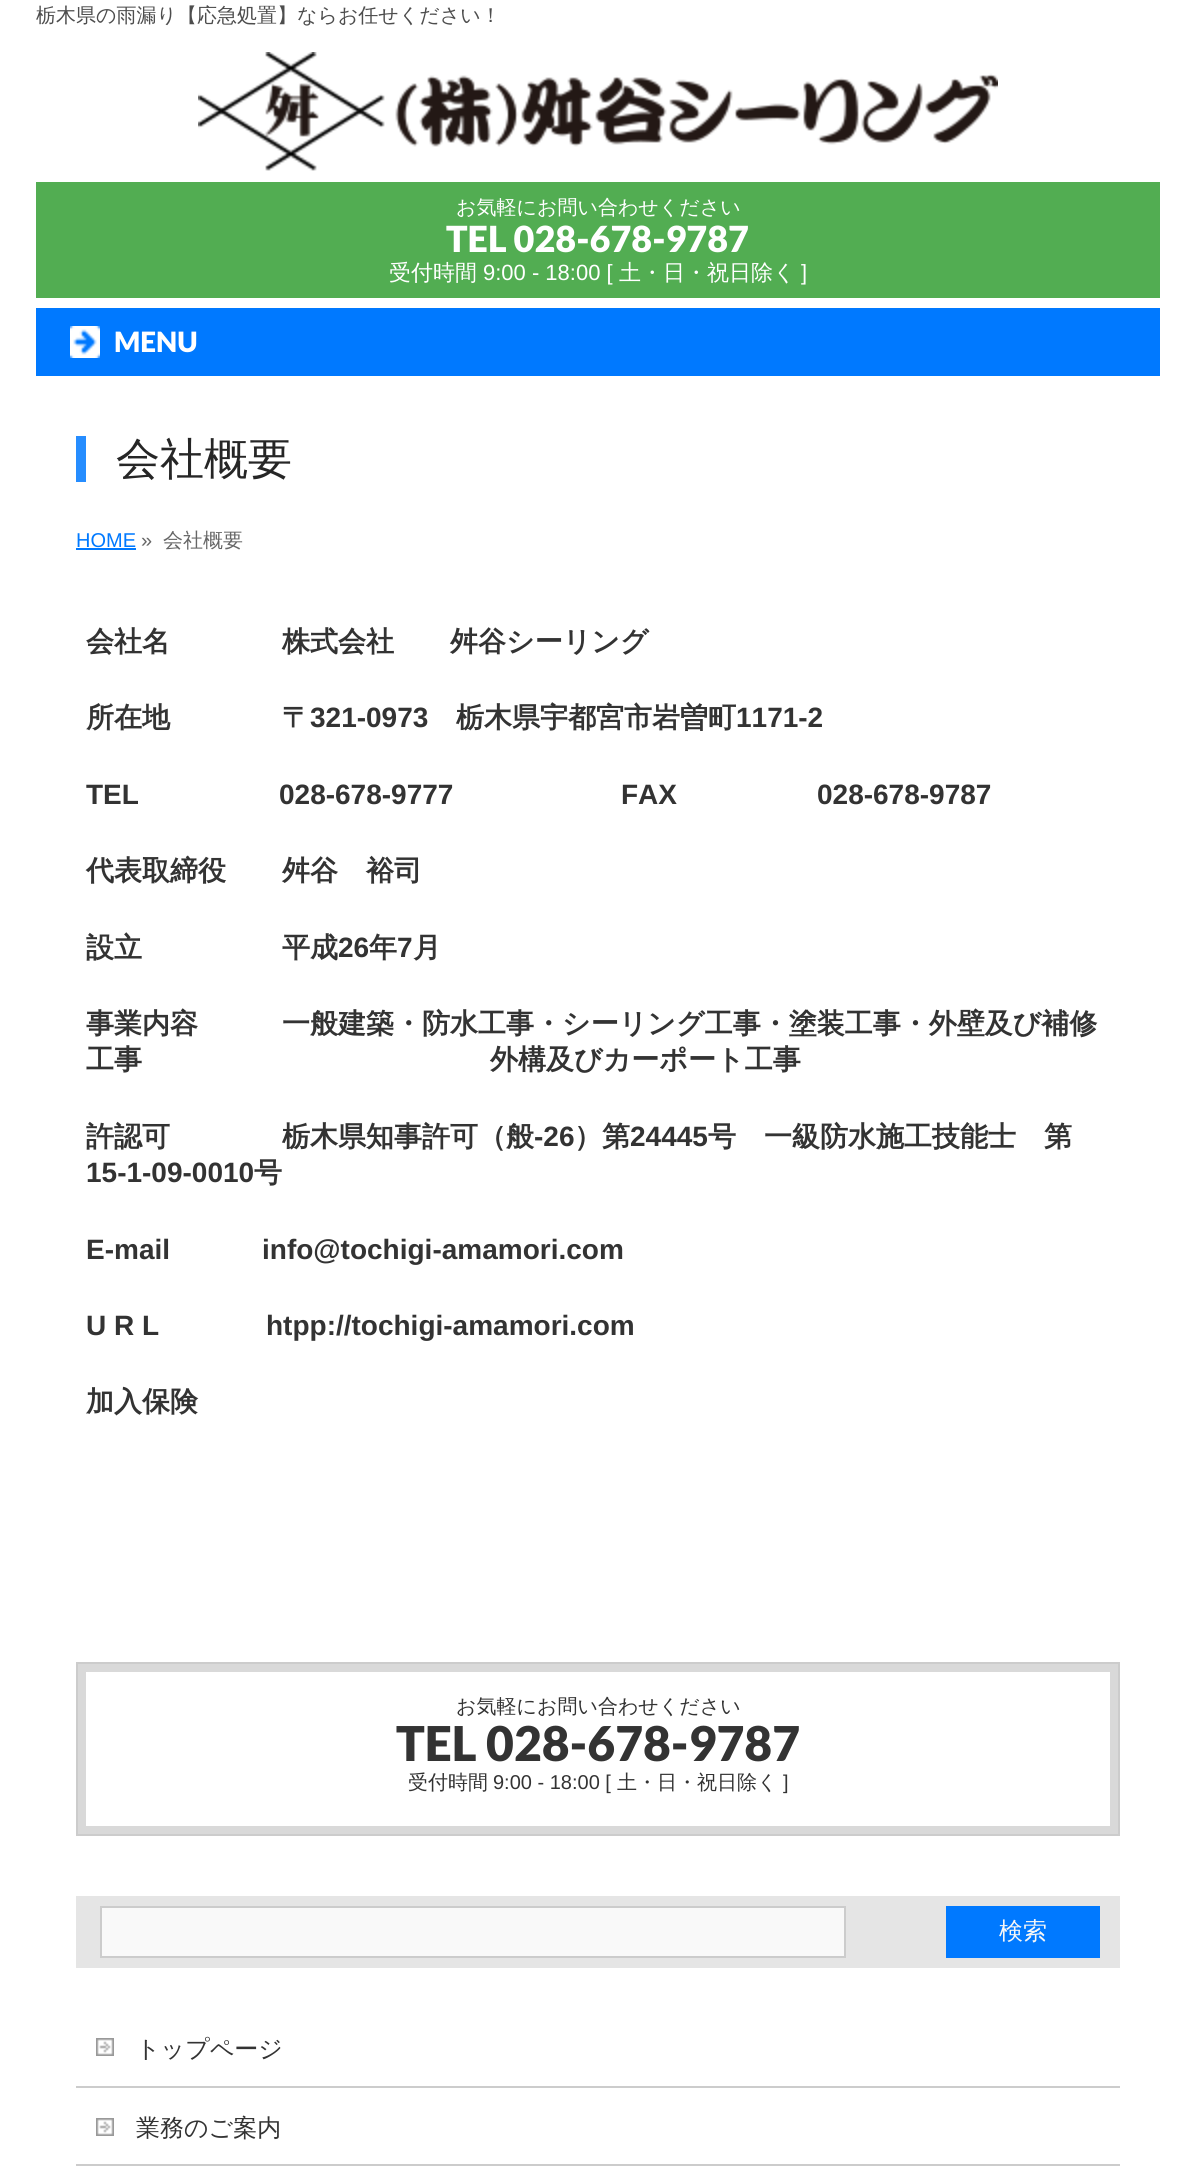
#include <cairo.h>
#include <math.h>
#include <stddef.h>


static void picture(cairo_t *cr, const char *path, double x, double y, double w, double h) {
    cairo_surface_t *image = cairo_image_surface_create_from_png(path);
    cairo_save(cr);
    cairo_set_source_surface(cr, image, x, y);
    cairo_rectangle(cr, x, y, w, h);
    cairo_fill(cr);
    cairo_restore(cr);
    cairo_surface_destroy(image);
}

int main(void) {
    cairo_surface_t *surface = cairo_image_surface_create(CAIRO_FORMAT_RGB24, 1195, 2181);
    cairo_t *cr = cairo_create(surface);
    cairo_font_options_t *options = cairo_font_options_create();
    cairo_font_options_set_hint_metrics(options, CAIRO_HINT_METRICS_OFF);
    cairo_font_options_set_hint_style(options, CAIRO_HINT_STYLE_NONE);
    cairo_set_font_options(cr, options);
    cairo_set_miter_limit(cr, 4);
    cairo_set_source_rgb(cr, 1, 1, 1);
    cairo_paint(cr);
    cairo_select_font_face(cr, "WenQuanYi Zen Hei Medium", CAIRO_FONT_SLANT_NORMAL, CAIRO_FONT_WEIGHT_NORMAL);
    cairo_set_font_size(cr, 20);
    cairo_set_source_rgb(cr, 0.302, 0.302, 0.302);
    cairo_move_to(cr, 36, 22);
    cairo_show_text(cr, "栃木県の雨漏り【応急処置】ならお任せください！");
    picture(cr, "img1.png", 198, 52, 800, 119);
    cairo_set_source_rgb(cr, 0.322, 0.678, 0.322);
    cairo_rectangle(cr, 36, 182, 1124, 116);
    cairo_fill(cr);
    cairo_set_source_rgb(cr, 1, 1, 1);
    cairo_move_to(cr, 456, 214);
    cairo_show_text(cr, "お気軽にお問い合わせください");
    cairo_select_font_face(cr, "Lato Black", CAIRO_FONT_SLANT_NORMAL, CAIRO_FONT_WEIGHT_NORMAL);
    cairo_set_font_size(cr, 36);
    cairo_move_to(cr, 446, 252);
    cairo_show_text(cr, "TEL 028-678-9787");
    cairo_select_font_face(cr, "WenQuanYi Zen Hei Medium", CAIRO_FONT_SLANT_NORMAL, CAIRO_FONT_WEIGHT_NORMAL);
    cairo_set_font_size(cr, 22);
    cairo_move_to(cr, 389, 280);
    cairo_show_text(cr, "受付時間");
    cairo_select_font_face(cr, "Liberation Sans", CAIRO_FONT_SLANT_NORMAL, CAIRO_FONT_WEIGHT_NORMAL);
    cairo_move_to(cr, 483, 280);
    cairo_show_text(cr, "9:00 - 18:00 [");
    cairo_select_font_face(cr, "WenQuanYi Zen Hei Medium", CAIRO_FONT_SLANT_NORMAL, CAIRO_FONT_WEIGHT_NORMAL);
    cairo_move_to(cr, 619, 280);
    cairo_show_text(cr, "土・日・祝日除く");
    cairo_select_font_face(cr, "Liberation Sans", CAIRO_FONT_SLANT_NORMAL, CAIRO_FONT_WEIGHT_NORMAL);
    cairo_move_to(cr, 801, 280);
    cairo_show_text(cr, "]");
    cairo_set_source_rgb(cr, 0, 0.475, 1);
    cairo_rectangle(cr, 36, 308, 1124, 68);
    cairo_fill(cr);
    picture(cr, "img2.png", 70, 326, 30, 32);
    cairo_select_font_face(cr, "Lato Black", CAIRO_FONT_SLANT_NORMAL, CAIRO_FONT_WEIGHT_NORMAL);
    cairo_set_font_size(cr, 28);
    cairo_set_source_rgb(cr, 1, 1, 1);
    cairo_move_to(cr, 114, 352);
    cairo_show_text(cr, "MENU");
    cairo_set_source_rgb(cr, 0.149, 0.553, 1);
    cairo_rectangle(cr, 76, 436, 10, 46);
    cairo_fill(cr);
    cairo_select_font_face(cr, "WenQuanYi Zen Hei Medium", CAIRO_FONT_SLANT_NORMAL, CAIRO_FONT_WEIGHT_NORMAL);
    cairo_set_font_size(cr, 44);
    cairo_set_source_rgb(cr, 0.149, 0.149, 0.149);
    cairo_move_to(cr, 116, 474);
    cairo_show_text(cr, "会社概要");
    cairo_select_font_face(cr, "Liberation Sans", CAIRO_FONT_SLANT_NORMAL, CAIRO_FONT_WEIGHT_NORMAL);
    cairo_set_font_size(cr, 20);
    cairo_set_source_rgb(cr, 0, 0.475, 1);
    cairo_move_to(cr, 76, 547);
    cairo_show_text(cr, "HOME");
    cairo_rectangle(cr, 76, 548, 60, 2);
    cairo_fill(cr);
    cairo_set_source_rgb(cr, 0.4, 0.4, 0.4);
    cairo_move_to(cr, 141, 547);
    cairo_show_text(cr, "»");
    cairo_select_font_face(cr, "WenQuanYi Zen Hei Medium", CAIRO_FONT_SLANT_NORMAL, CAIRO_FONT_WEIGHT_NORMAL);
    cairo_move_to(cr, 163, 547);
    cairo_show_text(cr, "会社概要");
    cairo_select_font_face(cr, "WenQuanYi Zen Hei", CAIRO_FONT_SLANT_NORMAL, CAIRO_FONT_WEIGHT_BOLD);
    cairo_set_font_size(cr, 28);
    cairo_set_source_rgb(cr, 0.2, 0.2, 0.2);
    cairo_move_to(cr, 86, 651);
    cairo_show_text(cr, "会社名　　　　株式会社　　舛谷シーリング");
    cairo_move_to(cr, 86, 727);
    cairo_show_text(cr, "所在地　　　　〒");
    cairo_select_font_face(cr, "Liberation Sans", CAIRO_FONT_SLANT_NORMAL, CAIRO_FONT_WEIGHT_BOLD);
    cairo_move_to(cr, 310, 727);
    cairo_show_text(cr, "321-0973");
    cairo_select_font_face(cr, "WenQuanYi Zen Hei", CAIRO_FONT_SLANT_NORMAL, CAIRO_FONT_WEIGHT_BOLD);
    cairo_move_to(cr, 456, 727);
    cairo_show_text(cr, "栃木県宇都宮市岩曽町");
    cairo_select_font_face(cr, "Liberation Sans", CAIRO_FONT_SLANT_NORMAL, CAIRO_FONT_WEIGHT_BOLD);
    cairo_move_to(cr, 736, 727);
    cairo_show_text(cr, "1171-2");
    cairo_move_to(cr, 86, 804);
    cairo_show_text(cr, "TEL");
    cairo_move_to(cr, 279, 804);
    cairo_show_text(cr, "028-678-9777");
    cairo_move_to(cr, 621, 804);
    cairo_show_text(cr, "FAX");
    cairo_move_to(cr, 817, 804);
    cairo_show_text(cr, "028-678-9787");
    cairo_select_font_face(cr, "WenQuanYi Zen Hei", CAIRO_FONT_SLANT_NORMAL, CAIRO_FONT_WEIGHT_BOLD);
    cairo_move_to(cr, 86, 880);
    cairo_show_text(cr, "代表取締役　　舛谷　裕司");
    cairo_move_to(cr, 86, 957);
    cairo_show_text(cr, "設立　　　　　平成");
    cairo_select_font_face(cr, "Liberation Sans", CAIRO_FONT_SLANT_NORMAL, CAIRO_FONT_WEIGHT_BOLD);
    cairo_move_to(cr, 338, 957);
    cairo_show_text(cr, "26");
    cairo_select_font_face(cr, "WenQuanYi Zen Hei", CAIRO_FONT_SLANT_NORMAL, CAIRO_FONT_WEIGHT_BOLD);
    cairo_move_to(cr, 369, 957);
    cairo_show_text(cr, "年");
    cairo_select_font_face(cr, "Liberation Sans", CAIRO_FONT_SLANT_NORMAL, CAIRO_FONT_WEIGHT_BOLD);
    cairo_move_to(cr, 397, 957);
    cairo_show_text(cr, "7");
    cairo_select_font_face(cr, "WenQuanYi Zen Hei", CAIRO_FONT_SLANT_NORMAL, CAIRO_FONT_WEIGHT_BOLD);
    cairo_move_to(cr, 413, 957);
    cairo_show_text(cr, "月");
    cairo_move_to(cr, 86, 1033);
    cairo_show_text(cr, "事業内容　　　一般建築・防水工事・シーリング工事・塗装工事・外壁及び補修");
    cairo_move_to(cr, 86, 1069);
    cairo_show_text(cr, "工事");
    cairo_move_to(cr, 490, 1069);
    cairo_show_text(cr, "外構及びカーポート工事");
    cairo_move_to(cr, 86, 1146);
    cairo_show_text(cr, "許認可　　　　栃木県知事許可（般");
    cairo_select_font_face(cr, "Liberation Sans", CAIRO_FONT_SLANT_NORMAL, CAIRO_FONT_WEIGHT_BOLD);
    cairo_move_to(cr, 534, 1146);
    cairo_show_text(cr, "-26");
    cairo_select_font_face(cr, "WenQuanYi Zen Hei", CAIRO_FONT_SLANT_NORMAL, CAIRO_FONT_WEIGHT_BOLD);
    cairo_move_to(cr, 574, 1146);
    cairo_show_text(cr, "）第");
    cairo_select_font_face(cr, "Liberation Sans", CAIRO_FONT_SLANT_NORMAL, CAIRO_FONT_WEIGHT_BOLD);
    cairo_move_to(cr, 630, 1146);
    cairo_show_text(cr, "24445");
    cairo_select_font_face(cr, "WenQuanYi Zen Hei", CAIRO_FONT_SLANT_NORMAL, CAIRO_FONT_WEIGHT_BOLD);
    cairo_move_to(cr, 708, 1146);
    cairo_show_text(cr, "号　一級防水施工技能士　第");
    cairo_select_font_face(cr, "Liberation Sans", CAIRO_FONT_SLANT_NORMAL, CAIRO_FONT_WEIGHT_BOLD);
    cairo_move_to(cr, 86, 1182);
    cairo_show_text(cr, "15-1-09-0010");
    cairo_select_font_face(cr, "WenQuanYi Zen Hei", CAIRO_FONT_SLANT_NORMAL, CAIRO_FONT_WEIGHT_BOLD);
    cairo_move_to(cr, 254, 1182);
    cairo_show_text(cr, "号");
    cairo_select_font_face(cr, "Liberation Sans", CAIRO_FONT_SLANT_NORMAL, CAIRO_FONT_WEIGHT_BOLD);
    cairo_move_to(cr, 86, 1259);
    cairo_show_text(cr, "E-mail");
    cairo_move_to(cr, 262, 1259);
    cairo_show_text(cr, "info@tochigi-amamori.com");
    cairo_move_to(cr, 86, 1335);
    cairo_show_text(cr, "U R L");
    cairo_move_to(cr, 266, 1335);
    cairo_show_text(cr, "htpp://tochigi-amamori.com");
    cairo_select_font_face(cr, "WenQuanYi Zen Hei", CAIRO_FONT_SLANT_NORMAL, CAIRO_FONT_WEIGHT_BOLD);
    cairo_move_to(cr, 86, 1411);
    cairo_show_text(cr, "加入保険");
    cairo_rectangle(cr, 77, 1663, 1042, 172);
    cairo_set_source_rgb(cr, 0.8, 0.8, 0.8);
    cairo_stroke(cr);
    cairo_rectangle(cr, 82, 1668, 1032, 162);
    cairo_set_source_rgb(cr, 0.851, 0.851, 0.851);
    cairo_set_line_width(cr, 8);
    cairo_stroke(cr);
    cairo_select_font_face(cr, "WenQuanYi Zen Hei Medium", CAIRO_FONT_SLANT_NORMAL, CAIRO_FONT_WEIGHT_NORMAL);
    cairo_set_font_size(cr, 20);
    cairo_set_source_rgb(cr, 0.2, 0.2, 0.2);
    cairo_move_to(cr, 456, 1713);
    cairo_show_text(cr, "お気軽にお問い合わせください");
    cairo_select_font_face(cr, "Lato Black", CAIRO_FONT_SLANT_NORMAL, CAIRO_FONT_WEIGHT_NORMAL);
    cairo_set_font_size(cr, 48);
    cairo_move_to(cr, 396, 1761);
    cairo_show_text(cr, "TEL 028-678-9787");
    cairo_select_font_face(cr, "WenQuanYi Zen Hei Medium", CAIRO_FONT_SLANT_NORMAL, CAIRO_FONT_WEIGHT_NORMAL);
    cairo_set_font_size(cr, 20);
    cairo_move_to(cr, 408, 1789);
    cairo_show_text(cr, "受付時間");
    cairo_select_font_face(cr, "Liberation Sans", CAIRO_FONT_SLANT_NORMAL, CAIRO_FONT_WEIGHT_NORMAL);
    cairo_move_to(cr, 493, 1789);
    cairo_show_text(cr, "9:00 - 18:00 [");
    cairo_select_font_face(cr, "WenQuanYi Zen Hei Medium", CAIRO_FONT_SLANT_NORMAL, CAIRO_FONT_WEIGHT_NORMAL);
    cairo_move_to(cr, 617, 1789);
    cairo_show_text(cr, "土・日・祝日除く");
    cairo_select_font_face(cr, "Liberation Sans", CAIRO_FONT_SLANT_NORMAL, CAIRO_FONT_WEIGHT_NORMAL);
    cairo_move_to(cr, 783, 1789);
    cairo_show_text(cr, "]");
    cairo_set_source_rgb(cr, 0.898, 0.898, 0.898);
    cairo_rectangle(cr, 76, 1896, 1044, 72);
    cairo_fill(cr);
    cairo_set_source_rgb(cr, 0.976, 0.976, 0.976);
    cairo_rectangle(cr, 101, 1907, 744, 50);
    cairo_fill_preserve(cr);
    cairo_set_source_rgb(cr, 0.8, 0.8, 0.8);
    cairo_set_line_width(cr, 2);
    cairo_stroke(cr);
    cairo_set_source_rgb(cr, 0, 0.475, 1);
    cairo_rectangle(cr, 946, 1906, 154, 52);
    cairo_fill(cr);
    cairo_select_font_face(cr, "WenQuanYi Zen Hei Medium", CAIRO_FONT_SLANT_NORMAL, CAIRO_FONT_WEIGHT_NORMAL);
    cairo_set_font_size(cr, 24);
    cairo_set_source_rgb(cr, 0.961, 0.961, 0.961);
    cairo_move_to(cr, 999, 1939);
    cairo_show_text(cr, "検索");
    cairo_set_source_rgb(cr, 0.8, 0.8, 0.8);
    cairo_rectangle(cr, 76, 2086, 1044, 2);
    cairo_fill(cr);
    picture(cr, "img3.png", 96, 2038, 18, 18);
    cairo_set_source_rgb(cr, 0.2, 0.2, 0.2);
    cairo_move_to(cr, 136, 2057);
    cairo_show_text(cr, "トップページ");
    cairo_set_source_rgb(cr, 0.8, 0.8, 0.8);
    cairo_rectangle(cr, 76, 2164, 1044, 2);
    cairo_fill(cr);
    picture(cr, "img3.png", 96, 2118, 18, 18);
    cairo_set_source_rgb(cr, 0.2, 0.2, 0.2);
    cairo_move_to(cr, 136, 2136);
    cairo_show_text(cr, "業務のご案内");
    cairo_surface_write_to_png(surface, "page.png");
    cairo_font_options_destroy(options);
    cairo_destroy(cr);
    cairo_surface_destroy(surface);
    return 0;
}
